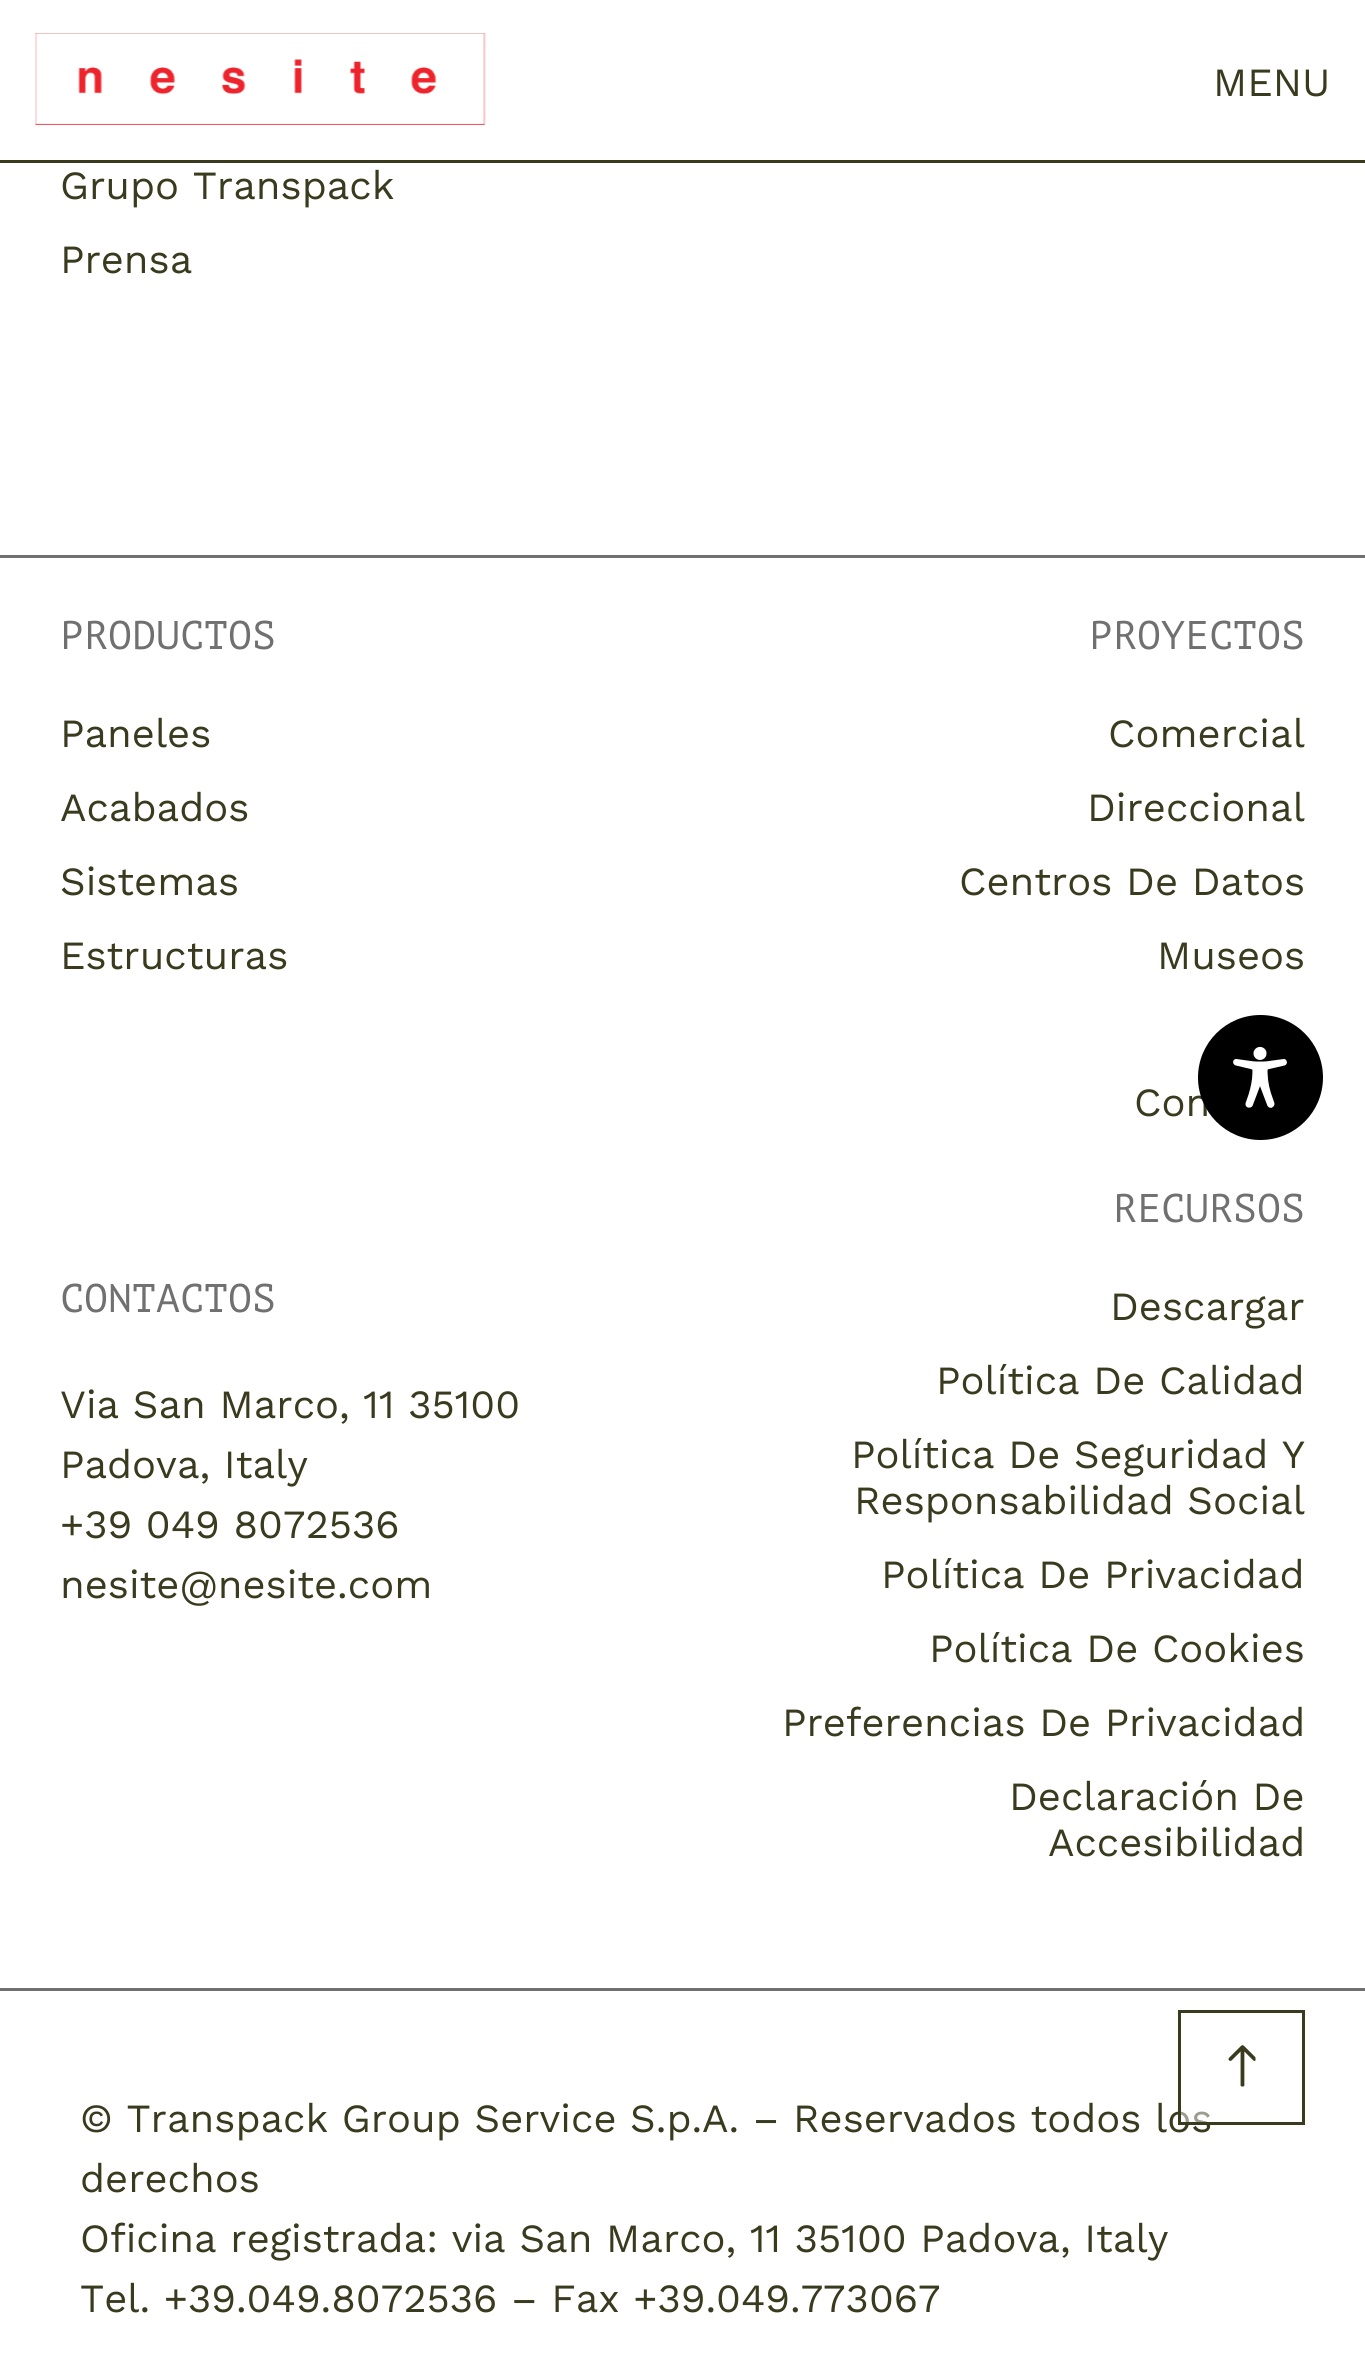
#include <cairo.h>
#include <math.h>
#include <stddef.h>


static void picture(cairo_t *cr, const char *path, double x, double y, double w, double h) {
    cairo_surface_t *image = cairo_image_surface_create_from_png(path);
    cairo_save(cr);
    cairo_set_source_surface(cr, image, x, y);
    cairo_rectangle(cr, x, y, w, h);
    cairo_fill(cr);
    cairo_restore(cr);
    cairo_surface_destroy(image);
}

int main(void) {
    cairo_surface_t *surface = cairo_image_surface_create(CAIRO_FORMAT_RGB24, 1365, 2363);
    cairo_t *cr = cairo_create(surface);
    cairo_font_options_t *options = cairo_font_options_create();
    cairo_font_options_set_hint_metrics(options, CAIRO_HINT_METRICS_OFF);
    cairo_font_options_set_hint_style(options, CAIRO_HINT_STYLE_NONE);
    cairo_set_font_options(cr, options);
    cairo_set_miter_limit(cr, 4);
    cairo_set_source_rgb(cr, 1, 1, 1);
    cairo_paint(cr);
    cairo_set_source_rgb(cr, 0.227, 0.227, 0.122);
    cairo_rectangle(cr, 0, 160, 1365, 3);
    cairo_fill(cr);
    picture(cr, "img1.png", 35, 33, 451, 92);
    cairo_select_font_face(cr, "Work Sans", CAIRO_FONT_SLANT_NORMAL, CAIRO_FONT_WEIGHT_NORMAL);
    cairo_set_font_size(cr, 40);
    cairo_move_to(cr, 1213, 96);
    cairo_show_text(cr, "MENU");
    cairo_move_to(cr, 60, 199);
    cairo_show_text(cr, "Grupo Transpack");
    cairo_move_to(cr, 60, 273);
    cairo_show_text(cr, "Prensa");
    cairo_set_source_rgb(cr, 0.439, 0.439, 0.439);
    cairo_rectangle(cr, 0, 555, 1365, 3);
    cairo_fill(cr);
    cairo_select_font_face(cr, "PT Mono", CAIRO_FONT_SLANT_NORMAL, CAIRO_FONT_WEIGHT_NORMAL);
    cairo_move_to(cr, 60, 649);
    cairo_show_text(cr, "PRODUCTOS");
    cairo_select_font_face(cr, "Work Sans", CAIRO_FONT_SLANT_NORMAL, CAIRO_FONT_WEIGHT_NORMAL);
    cairo_set_source_rgb(cr, 0.227, 0.227, 0.122);
    cairo_move_to(cr, 60, 747);
    cairo_show_text(cr, "Paneles");
    cairo_move_to(cr, 60, 821);
    cairo_show_text(cr, "Acabados");
    cairo_move_to(cr, 60, 895);
    cairo_show_text(cr, "Sistemas");
    cairo_move_to(cr, 60, 969);
    cairo_show_text(cr, "Estructuras");
    cairo_select_font_face(cr, "PT Mono", CAIRO_FONT_SLANT_NORMAL, CAIRO_FONT_WEIGHT_NORMAL);
    cairo_set_source_rgb(cr, 0.439, 0.439, 0.439);
    cairo_move_to(cr, 60, 1312);
    cairo_show_text(cr, "CONTACTOS");
    cairo_select_font_face(cr, "Work Sans", CAIRO_FONT_SLANT_NORMAL, CAIRO_FONT_WEIGHT_NORMAL);
    cairo_set_source_rgb(cr, 0.227, 0.227, 0.122);
    cairo_move_to(cr, 60, 1418);
    cairo_show_text(cr, "Via San Marco, 11 35100");
    cairo_move_to(cr, 60, 1478);
    cairo_show_text(cr, "Padova, Italy");
    cairo_move_to(cr, 60, 1538);
    cairo_show_text(cr, "+39 049 8072536");
    cairo_move_to(cr, 60, 1598);
    cairo_show_text(cr, "nesite@nesite.com");
    cairo_select_font_face(cr, "PT Mono", CAIRO_FONT_SLANT_NORMAL, CAIRO_FONT_WEIGHT_NORMAL);
    cairo_set_source_rgb(cr, 0.439, 0.439, 0.439);
    cairo_move_to(cr, 1089, 649);
    cairo_show_text(cr, "PROYECTOS");
    cairo_select_font_face(cr, "Work Sans", CAIRO_FONT_SLANT_NORMAL, CAIRO_FONT_WEIGHT_NORMAL);
    cairo_set_source_rgb(cr, 0.227, 0.227, 0.122);
    cairo_move_to(cr, 1108, 747);
    cairo_show_text(cr, "Comercial");
    cairo_move_to(cr, 1087, 821);
    cairo_show_text(cr, "Direccional");
    cairo_move_to(cr, 959, 895);
    cairo_show_text(cr, "Centros De Datos");
    cairo_move_to(cr, 1157, 969);
    cairo_show_text(cr, "Museos");
    cairo_move_to(cr, 1134, 1116);
    cairo_show_text(cr, "Con");
    cairo_select_font_face(cr, "PT Mono", CAIRO_FONT_SLANT_NORMAL, CAIRO_FONT_WEIGHT_NORMAL);
    cairo_set_source_rgb(cr, 0.439, 0.439, 0.439);
    cairo_move_to(cr, 1113, 1222);
    cairo_show_text(cr, "RECURSOS");
    cairo_select_font_face(cr, "Work Sans", CAIRO_FONT_SLANT_NORMAL, CAIRO_FONT_WEIGHT_NORMAL);
    cairo_set_source_rgb(cr, 0.227, 0.227, 0.122);
    cairo_move_to(cr, 1110, 1320);
    cairo_show_text(cr, "Descargar");
    cairo_move_to(cr, 936, 1394);
    cairo_show_text(cr, "Política De Calidad");
    cairo_move_to(cr, 851, 1468);
    cairo_show_text(cr, "Política De Seguridad Y");
    cairo_move_to(cr, 854, 1514);
    cairo_show_text(cr, "Responsabilidad Social");
    cairo_move_to(cr, 881, 1588);
    cairo_show_text(cr, "Política De Privacidad");
    cairo_move_to(cr, 929, 1662);
    cairo_show_text(cr, "Política De Cookies");
    cairo_move_to(cr, 782, 1736);
    cairo_show_text(cr, "Preferencias De Privacidad");
    cairo_move_to(cr, 1009, 1810);
    cairo_show_text(cr, "Declaración De");
    cairo_move_to(cr, 1048, 1856);
    cairo_show_text(cr, "Accesibilidad");
    cairo_set_source_rgb(cr, 0.439, 0.439, 0.439);
    cairo_rectangle(cr, 0, 1988, 1365, 3);
    cairo_fill(cr);
    cairo_set_source_rgb(cr, 0, 0, 0);
    cairo_arc(cr, 1260.5, 1077.5, 62.5, 0, 2 * M_PI);
    cairo_fill(cr);
    picture(cr, "img2.png", 1233, 1046, 54, 62);
    cairo_set_source_rgb(cr, 0.227, 0.227, 0.122);
    cairo_move_to(cr, 80, 2132);
    cairo_show_text(cr, "© Transpack Group Service S.p.A. – Reservados todos los");
    cairo_set_source_rgba(cr, 1, 1, 1, 0.5);
    cairo_rectangle(cr, 1181, 2111, 29, 11);
    cairo_fill(cr);
    cairo_rectangle(cr, 1179.5, 2011.5, 124, 112);
    cairo_set_source_rgb(cr, 0.227, 0.227, 0.122);
    cairo_set_line_width(cr, 3);
    cairo_stroke(cr);
    picture(cr, "img3.png", 1228, 2045, 28, 42);
    cairo_move_to(cr, 80, 2192);
    cairo_show_text(cr, "derechos");
    cairo_move_to(cr, 80, 2252);
    cairo_show_text(cr, "Oficina registrada: via San Marco, 11 35100 Padova, Italy");
    cairo_move_to(cr, 80, 2312);
    cairo_show_text(cr, "Tel. +39.049.8072536 – Fax +39.049.773067");
    cairo_surface_write_to_png(surface, "page.png");
    cairo_font_options_destroy(options);
    cairo_destroy(cr);
    cairo_surface_destroy(surface);
    return 0;
}
